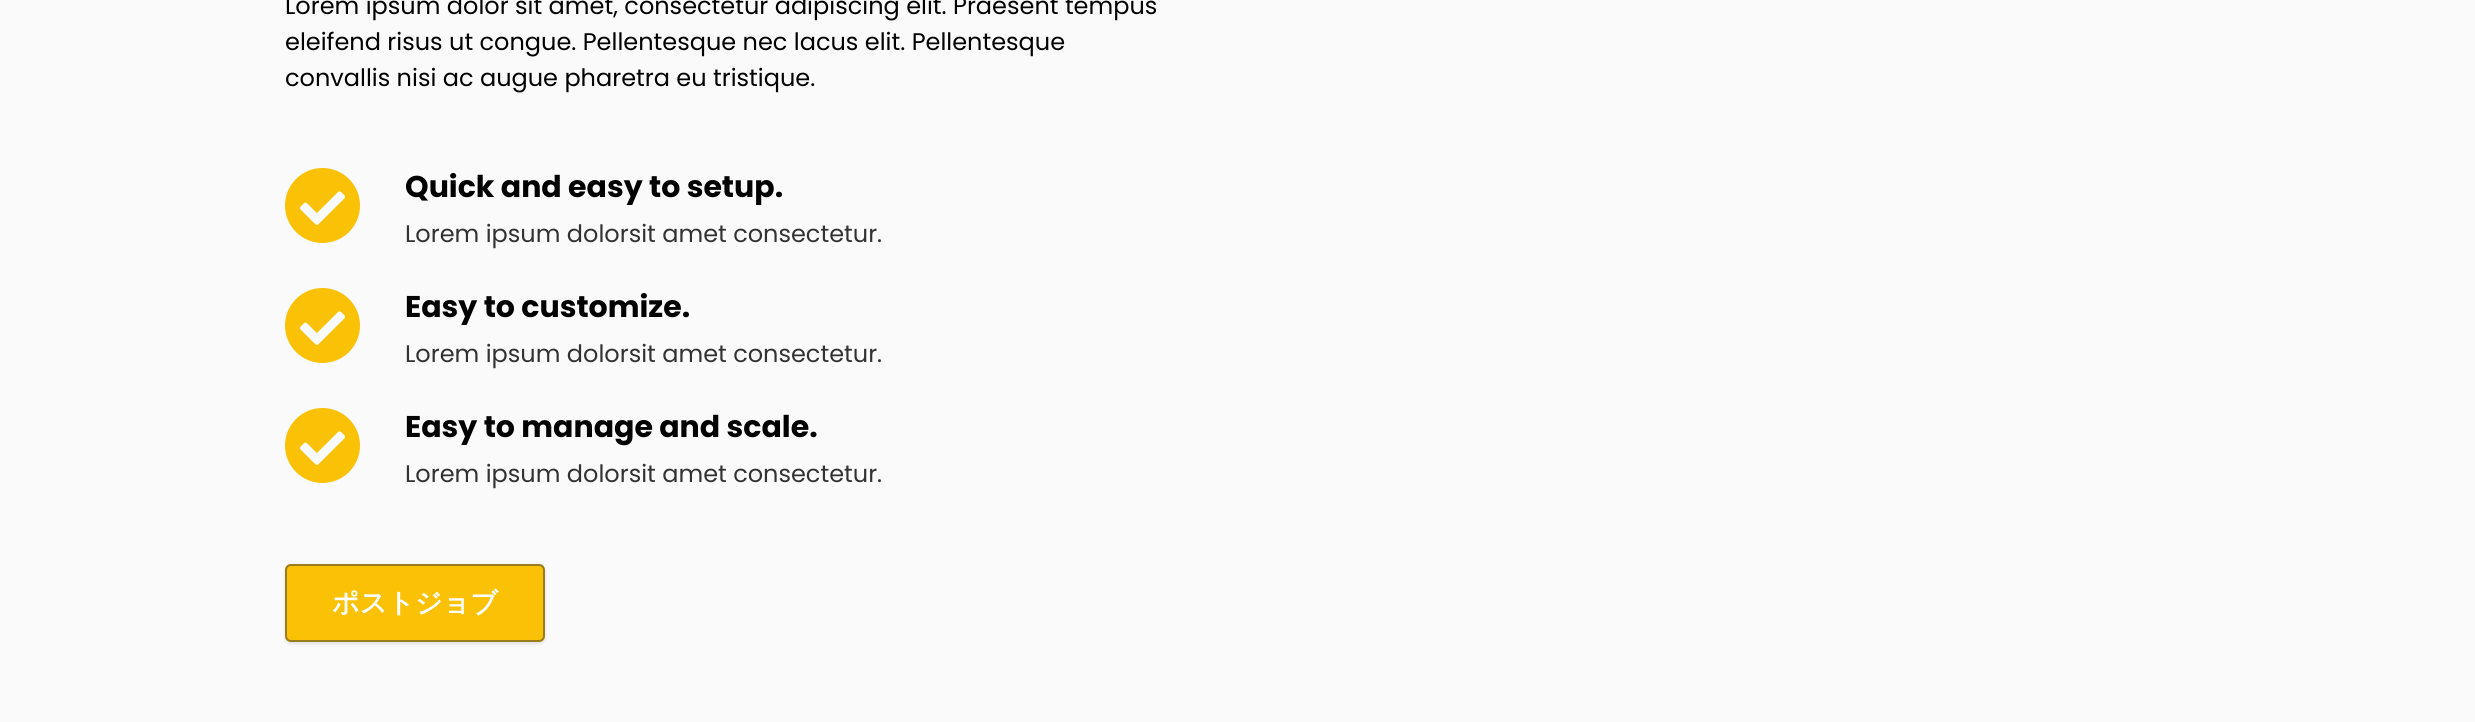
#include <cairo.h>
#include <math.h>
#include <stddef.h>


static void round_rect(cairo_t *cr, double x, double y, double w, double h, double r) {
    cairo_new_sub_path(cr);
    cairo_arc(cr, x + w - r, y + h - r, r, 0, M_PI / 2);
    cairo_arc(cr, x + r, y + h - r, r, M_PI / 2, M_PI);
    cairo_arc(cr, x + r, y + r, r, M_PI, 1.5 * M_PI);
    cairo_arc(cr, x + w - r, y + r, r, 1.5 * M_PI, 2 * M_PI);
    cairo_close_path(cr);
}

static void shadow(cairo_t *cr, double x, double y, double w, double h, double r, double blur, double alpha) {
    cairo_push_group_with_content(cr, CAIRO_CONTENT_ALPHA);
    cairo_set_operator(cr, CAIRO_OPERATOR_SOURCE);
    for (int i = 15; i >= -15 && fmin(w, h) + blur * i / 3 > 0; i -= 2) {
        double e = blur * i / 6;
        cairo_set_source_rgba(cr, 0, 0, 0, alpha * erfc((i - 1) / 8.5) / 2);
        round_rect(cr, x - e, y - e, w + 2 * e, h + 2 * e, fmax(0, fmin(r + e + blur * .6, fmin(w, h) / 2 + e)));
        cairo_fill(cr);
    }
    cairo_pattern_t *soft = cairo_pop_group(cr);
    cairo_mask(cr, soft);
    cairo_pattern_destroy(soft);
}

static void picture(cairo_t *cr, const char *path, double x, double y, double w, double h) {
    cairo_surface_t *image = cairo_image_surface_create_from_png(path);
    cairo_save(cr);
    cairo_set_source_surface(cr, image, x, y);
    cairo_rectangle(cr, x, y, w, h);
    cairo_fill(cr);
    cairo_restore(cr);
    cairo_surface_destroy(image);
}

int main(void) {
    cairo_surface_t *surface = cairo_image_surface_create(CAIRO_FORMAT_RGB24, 2475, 722);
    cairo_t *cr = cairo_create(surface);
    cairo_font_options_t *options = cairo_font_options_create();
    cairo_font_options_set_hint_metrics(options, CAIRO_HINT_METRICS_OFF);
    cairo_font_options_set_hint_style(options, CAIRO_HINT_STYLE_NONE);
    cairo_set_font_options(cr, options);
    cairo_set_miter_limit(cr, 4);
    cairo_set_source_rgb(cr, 0.98, 0.98, 0.984);
    cairo_paint(cr);
    cairo_select_font_face(cr, "Poppins", CAIRO_FONT_SLANT_NORMAL, CAIRO_FONT_WEIGHT_NORMAL);
    cairo_set_font_size(cr, 24);
    cairo_set_source_rgb(cr, 0, 0, 0);
    cairo_move_to(cr, 285, 14);
    cairo_show_text(cr, "Lorem ipsum dolor sit amet, consectetur adipiscing elit. Praesent tempus");
    cairo_move_to(cr, 285, 50);
    cairo_show_text(cr, "eleifend risus ut congue. Pellentesque nec lacus elit. Pellentesque");
    cairo_move_to(cr, 285, 86);
    cairo_show_text(cr, "convallis nisi ac augue pharetra eu tristique.");
    cairo_set_source_rgb(cr, 0.98, 0.757, 0.024);
    cairo_new_path(cr);
    cairo_arc(cr, 322.5, 205.5, 37.5, 0, 2 * M_PI);
    cairo_fill(cr);
    picture(cr, "img1.png", 300, 191, 45, 34);
    cairo_select_font_face(cr, "Poppins", CAIRO_FONT_SLANT_NORMAL, CAIRO_FONT_WEIGHT_BOLD);
    cairo_set_font_size(cr, 30);
    cairo_set_source_rgb(cr, 0, 0, 0);
    cairo_move_to(cr, 405, 197);
    cairo_show_text(cr, "Quick and easy to setup.");
    cairo_select_font_face(cr, "Poppins", CAIRO_FONT_SLANT_NORMAL, CAIRO_FONT_WEIGHT_NORMAL);
    cairo_set_font_size(cr, 24);
    cairo_set_source_rgb(cr, 0.196, 0.196, 0.196);
    cairo_move_to(cr, 405, 242);
    cairo_show_text(cr, "Lorem ipsum dolorsit amet consectetur.");
    cairo_set_source_rgb(cr, 0.98, 0.757, 0.024);
    cairo_new_path(cr);
    cairo_arc(cr, 322.5, 325.5, 37.5, 0, 2 * M_PI);
    cairo_fill(cr);
    picture(cr, "img1.png", 300, 311, 45, 34);
    cairo_select_font_face(cr, "Poppins", CAIRO_FONT_SLANT_NORMAL, CAIRO_FONT_WEIGHT_BOLD);
    cairo_set_font_size(cr, 30);
    cairo_set_source_rgb(cr, 0, 0, 0);
    cairo_move_to(cr, 405, 317);
    cairo_show_text(cr, "Easy to customize.");
    cairo_select_font_face(cr, "Poppins", CAIRO_FONT_SLANT_NORMAL, CAIRO_FONT_WEIGHT_NORMAL);
    cairo_set_font_size(cr, 24);
    cairo_set_source_rgb(cr, 0.196, 0.196, 0.196);
    cairo_move_to(cr, 405, 362);
    cairo_show_text(cr, "Lorem ipsum dolorsit amet consectetur.");
    cairo_set_source_rgb(cr, 0.98, 0.757, 0.024);
    cairo_new_path(cr);
    cairo_arc(cr, 322.5, 445.5, 37.5, 0, 2 * M_PI);
    cairo_fill(cr);
    picture(cr, "img1.png", 300, 431, 45, 34);
    cairo_select_font_face(cr, "Poppins", CAIRO_FONT_SLANT_NORMAL, CAIRO_FONT_WEIGHT_BOLD);
    cairo_set_font_size(cr, 30);
    cairo_set_source_rgb(cr, 0, 0, 0);
    cairo_move_to(cr, 405, 437);
    cairo_show_text(cr, "Easy to manage and scale.");
    cairo_select_font_face(cr, "Poppins", CAIRO_FONT_SLANT_NORMAL, CAIRO_FONT_WEIGHT_NORMAL);
    cairo_set_font_size(cr, 24);
    cairo_set_source_rgb(cr, 0.196, 0.196, 0.196);
    cairo_move_to(cr, 405, 482);
    cairo_show_text(cr, "Lorem ipsum dolorsit amet consectetur.");
    cairo_set_source_rgb(cr, 0, 0, 0);
    shadow(cr, 285, 566, 260, 78, 6, 1.5, 0.1);
    cairo_set_source_rgb(cr, 0.98, 0.757, 0.024);
    round_rect(cr, 285, 564, 260, 78, 6);
    cairo_fill(cr);
    round_rect(cr, 286, 565, 258, 76, 5);
    cairo_set_source_rgba(cr, 0.212, 0.212, 0.212, 0.49);
    cairo_stroke(cr);
    cairo_select_font_face(cr, "WenQuanYi Zen Hei", CAIRO_FONT_SLANT_NORMAL, CAIRO_FONT_WEIGHT_BOLD);
    cairo_set_font_size(cr, 27);
    cairo_set_source_rgb(cr, 1, 1, 1);
    cairo_move_to(cr, 332, 612);
    cairo_show_text(cr, "ポストジョブ");
    cairo_surface_write_to_png(surface, "page.png");
    cairo_font_options_destroy(options);
    cairo_destroy(cr);
    cairo_surface_destroy(surface);
    return 0;
}
